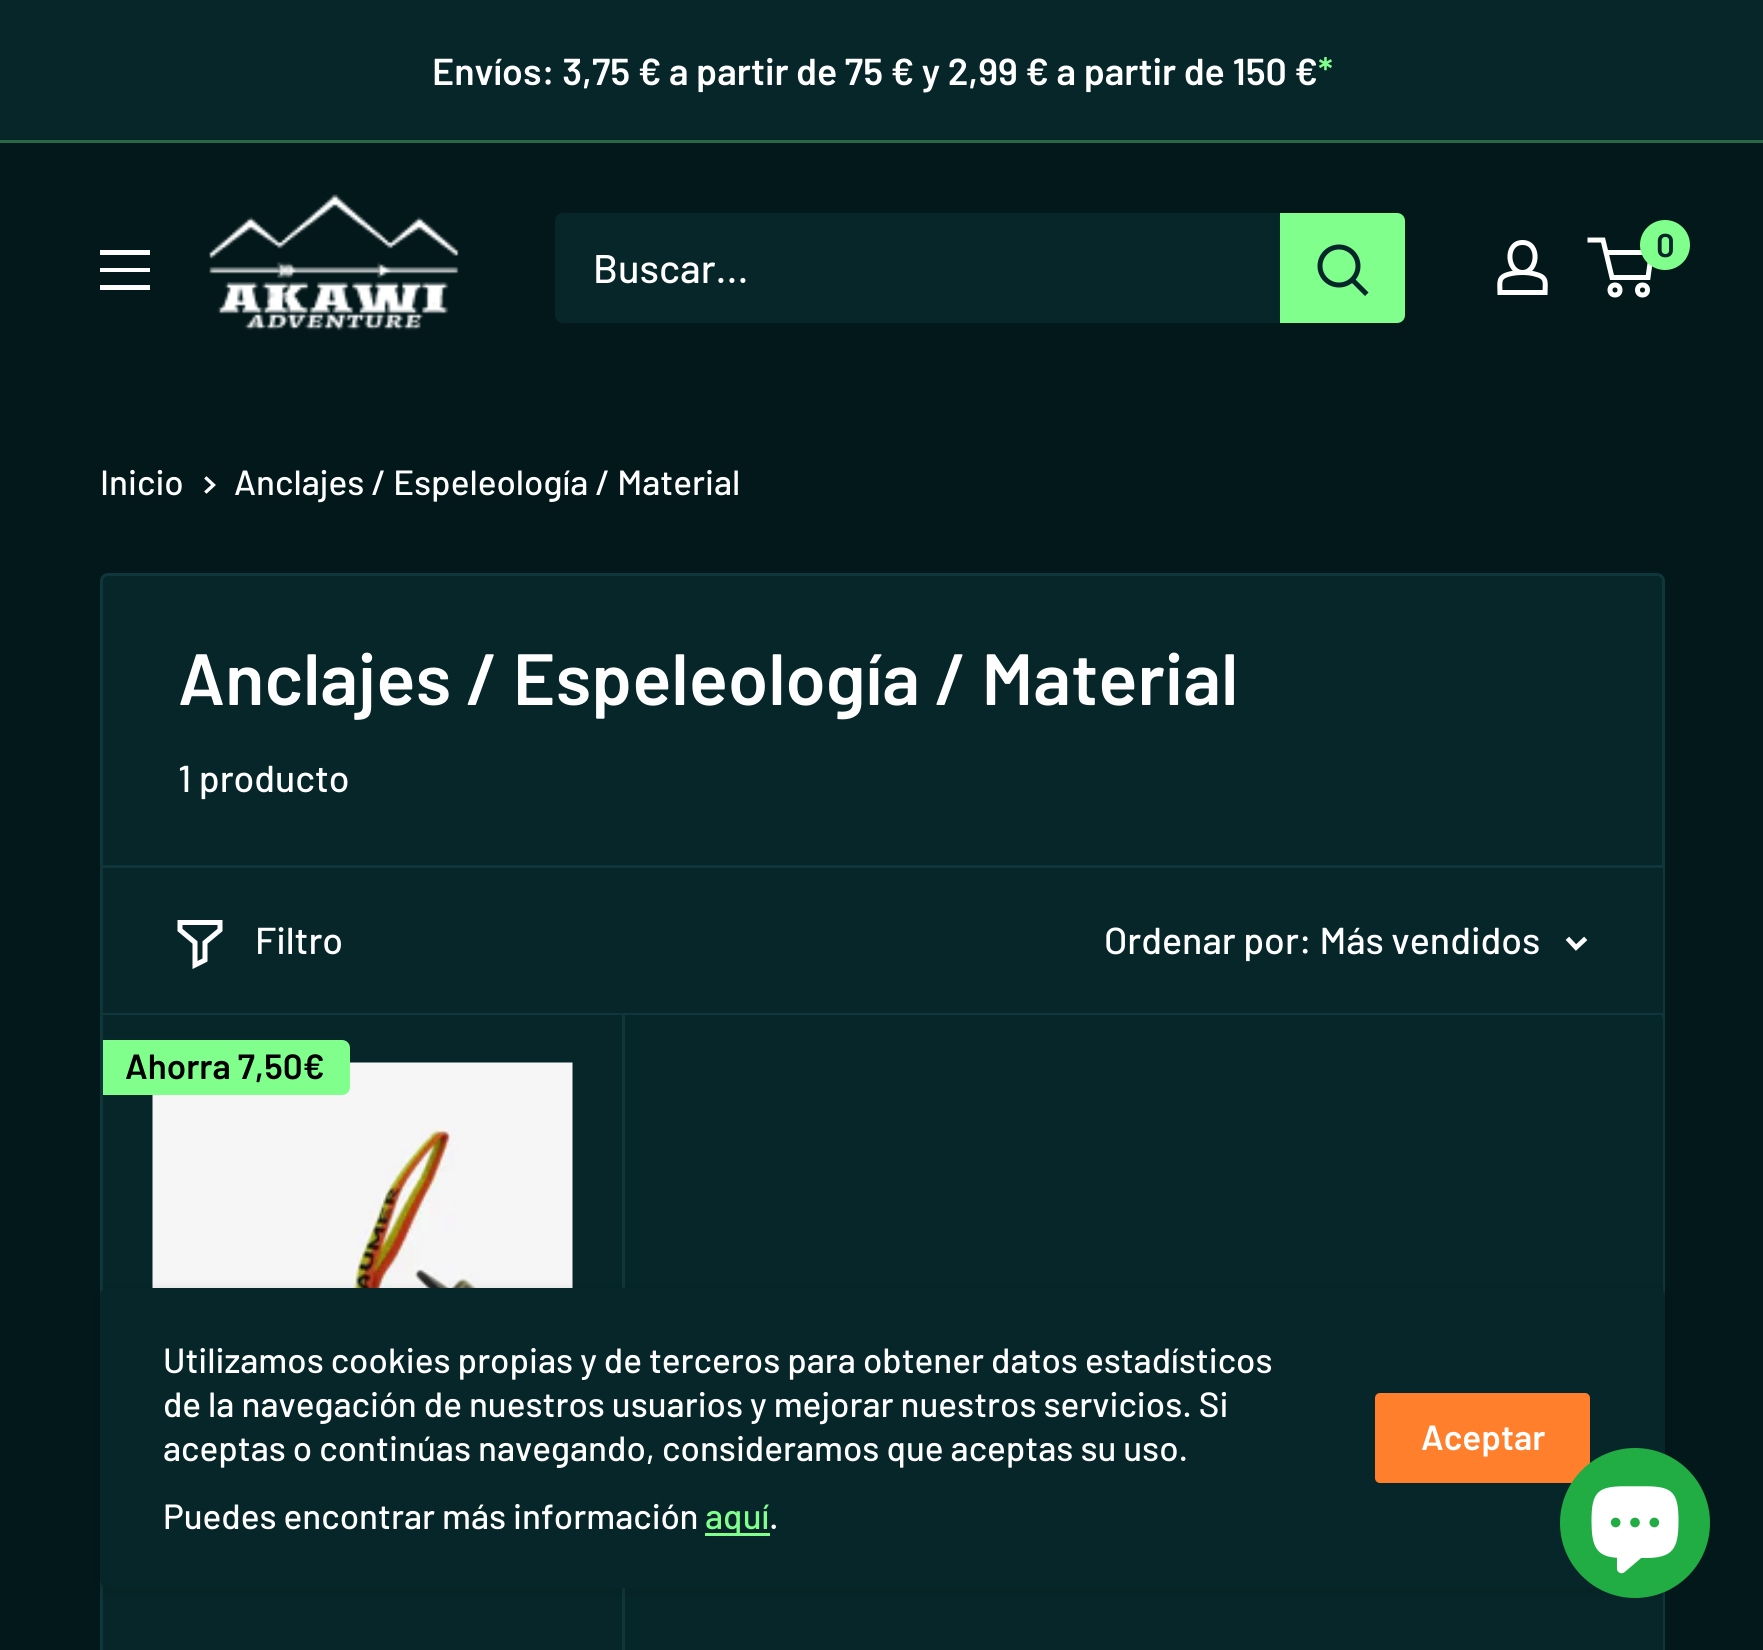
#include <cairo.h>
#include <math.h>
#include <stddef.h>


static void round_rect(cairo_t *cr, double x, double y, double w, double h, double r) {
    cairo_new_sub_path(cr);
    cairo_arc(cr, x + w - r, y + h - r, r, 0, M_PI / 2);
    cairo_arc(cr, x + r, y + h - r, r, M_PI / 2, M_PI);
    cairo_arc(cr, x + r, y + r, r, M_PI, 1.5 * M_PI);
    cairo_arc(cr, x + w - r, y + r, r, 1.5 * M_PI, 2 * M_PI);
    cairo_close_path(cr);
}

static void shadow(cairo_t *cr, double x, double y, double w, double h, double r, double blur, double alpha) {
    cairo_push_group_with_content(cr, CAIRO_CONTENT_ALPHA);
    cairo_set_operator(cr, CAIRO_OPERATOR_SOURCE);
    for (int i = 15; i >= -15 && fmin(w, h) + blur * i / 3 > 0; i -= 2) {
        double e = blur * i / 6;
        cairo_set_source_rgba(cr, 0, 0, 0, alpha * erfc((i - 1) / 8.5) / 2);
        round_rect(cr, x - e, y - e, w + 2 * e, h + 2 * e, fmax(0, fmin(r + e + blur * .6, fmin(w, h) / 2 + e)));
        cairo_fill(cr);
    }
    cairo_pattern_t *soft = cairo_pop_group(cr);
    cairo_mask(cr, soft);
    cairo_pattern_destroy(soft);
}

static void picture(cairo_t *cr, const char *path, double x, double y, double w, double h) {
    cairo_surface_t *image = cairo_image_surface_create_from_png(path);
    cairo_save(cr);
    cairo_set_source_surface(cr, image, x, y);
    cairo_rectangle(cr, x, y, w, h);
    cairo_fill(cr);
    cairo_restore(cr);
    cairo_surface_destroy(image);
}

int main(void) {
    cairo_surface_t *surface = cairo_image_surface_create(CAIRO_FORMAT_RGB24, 1763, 1650);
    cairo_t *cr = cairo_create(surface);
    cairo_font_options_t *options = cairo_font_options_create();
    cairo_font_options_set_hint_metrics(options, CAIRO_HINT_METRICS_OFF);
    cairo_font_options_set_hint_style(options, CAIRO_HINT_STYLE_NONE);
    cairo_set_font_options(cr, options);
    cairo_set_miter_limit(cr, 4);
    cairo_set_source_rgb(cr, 0.008, 0.094, 0.102);
    cairo_paint(cr);
    cairo_set_source_rgb(cr, 0.027, 0.149, 0.161);
    cairo_rectangle(cr, 0, 0, 1763, 140);
    cairo_fill(cr);
    cairo_set_source_rgb(cr, 0.169, 0.404, 0.278);
    cairo_rectangle(cr, 0, 140, 1763, 3);
    cairo_fill(cr);
    cairo_select_font_face(cr, "Barlow SemiBold", CAIRO_FONT_SLANT_NORMAL, CAIRO_FONT_WEIGHT_NORMAL);
    cairo_set_font_size(cr, 37.5);
    cairo_set_source_rgb(cr, 1, 1, 1);
    cairo_move_to(cr, 432, 85);
    cairo_show_text(cr, "Envíos: 3,75 € a partir de 75 € y 2,99 € a partir de 150 €");
    cairo_set_source_rgb(cr, 0.502, 1, 0.553);
    cairo_move_to(cr, 1318, 85);
    cairo_show_text(cr, "*");
    picture(cr, "img1.png", 209, 194, 250, 137);
    cairo_new_path(cr);
    cairo_move_to(cr, 1522.5, 272.5);
    cairo_curve_to(cr, 1527, 272.5, 1532, 273, 1536.5, 274.5);
    cairo_curve_to(cr, 1547.5, 277.5, 1545, 283, 1545, 292.5);
    cairo_line_to(cr, 1500, 292.5);
    cairo_curve_to(cr, 1500, 282.5, 1497.5, 277, 1509.5, 274);
    cairo_curve_to(cr, 1513.5, 273, 1518, 272.5, 1522.5, 272.5);
    cairo_close_path(cr);
    cairo_move_to(cr, 1522.5, 272.5);
    cairo_curve_to(cr, 1507, 272.5, 1504.5, 242.5, 1522.5, 242.5);
    cairo_curve_to(cr, 1540.5, 242.5, 1538, 272.5, 1522.5, 272.5);
    cairo_close_path(cr);
    cairo_set_source_rgb(cr, 1, 1, 1);
    cairo_set_line_width(cr, 5);
    cairo_stroke(cr);
    cairo_arc(cr, 1615, 290, 5, 0, 2 * M_PI);
    cairo_stroke(cr);
    cairo_arc(cr, 1642.5, 290, 5, 0, 2 * M_PI);
    cairo_stroke(cr);
    cairo_new_path(cr);
    cairo_move_to(cr, 1606, 252.5);
    cairo_line_to(cr, 1651.5, 252.5);
    cairo_line_to(cr, 1648, 277.5);
    cairo_line_to(cr, 1612, 277.5);
    cairo_line_to(cr, 1603, 240);
    cairo_line_to(cr, 1587.5, 240);
    cairo_stroke(cr);
    cairo_set_source_rgb(cr, 0.502, 1, 0.553);
    cairo_arc(cr, 1665, 245, 25, 0, 2 * M_PI);
    cairo_fill(cr);
    cairo_set_font_size(cr, 33);
    cairo_set_source_rgb(cr, 0.027, 0.149, 0.161);
    cairo_move_to(cr, 1656, 257);
    cairo_show_text(cr, "0");
    cairo_set_source_rgb(cr, 1, 1, 1);
    cairo_set_fill_rule(cr, CAIRO_FILL_RULE_EVEN_ODD);
    cairo_new_path(cr);
    cairo_move_to(cr, 100, 285);
    cairo_line_to(cr, 150, 285);
    cairo_line_to(cr, 150, 290);
    cairo_line_to(cr, 100, 290);
    cairo_close_path(cr);
    cairo_move_to(cr, 100, 250);
    cairo_line_to(cr, 150, 250);
    cairo_line_to(cr, 150, 255);
    cairo_line_to(cr, 100, 255);
    cairo_close_path(cr);
    cairo_move_to(cr, 100, 268);
    cairo_line_to(cr, 150, 268);
    cairo_line_to(cr, 150, 272);
    cairo_line_to(cr, 100, 272);
    cairo_close_path(cr);
    cairo_fill(cr);
    cairo_set_source_rgb(cr, 0.027, 0.149, 0.161);
    round_rect(cr, 555, 213, 850, 110, 8);
    cairo_fill(cr);
    cairo_select_font_face(cr, "Barlow Medium", CAIRO_FONT_SLANT_NORMAL, CAIRO_FONT_WEIGHT_NORMAL);
    cairo_set_font_size(cr, 40);
    cairo_set_source_rgb(cr, 1, 1, 1);
    cairo_move_to(cr, 593, 283);
    cairo_show_text(cr, "Buscar...");
    cairo_set_source_rgb(cr, 0.502, 1, 0.553);
    cairo_new_path(cr);
    cairo_move_to(cr, 1280, 213);
    cairo_line_to(cr, 1397, 213);
    cairo_curve_to(cr, 1401.5, 213, 1405, 216.5, 1405, 221);
    cairo_line_to(cr, 1405, 315);
    cairo_curve_to(cr, 1405, 319.5, 1401.5, 323, 1397, 323);
    cairo_line_to(cr, 1280, 323);
    cairo_close_path(cr);
    cairo_fill(cr);
    cairo_new_path(cr);
    cairo_move_to(cr, 1365, 292.5);
    cairo_line_to(cr, 1352.5, 280);
    cairo_set_source_rgb(cr, 0.027, 0.149, 0.161);
    cairo_set_line_cap(cr, CAIRO_LINE_CAP_SQUARE);
    cairo_stroke(cr);
    cairo_arc(cr, 1339, 266, 19, 0, 2 * M_PI);
    cairo_set_line_cap(cr, CAIRO_LINE_CAP_BUTT);
    cairo_stroke(cr);
    cairo_set_font_size(cr, 35);
    cairo_set_source_rgb(cr, 1, 1, 1);
    cairo_move_to(cr, 100, 495);
    cairo_show_text(cr, "Inicio");
    cairo_new_path(cr);
    cairo_move_to(cr, 206.5, 478.5);
    cairo_line_to(cr, 213.5, 485);
    cairo_line_to(cr, 206.5, 491.5);
    cairo_set_line_width(cr, 3.3);
    cairo_set_line_cap(cr, CAIRO_LINE_CAP_SQUARE);
    cairo_stroke(cr);
    cairo_move_to(cr, 234, 495);
    cairo_show_text(cr, "Anclajes / Espeleología / Material");
    cairo_set_source_rgb(cr, 0.027, 0.149, 0.161);
    round_rect(cr, 101.5, 574.5, 1562, 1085, 6.5);
    cairo_fill_preserve(cr);
    cairo_set_source_rgb(cr, 0.059, 0.212, 0.227);
    cairo_set_line_width(cr, 3);
    cairo_set_line_cap(cr, CAIRO_LINE_CAP_BUTT);
    cairo_stroke(cr);
    cairo_select_font_face(cr, "Barlow SemiBold", CAIRO_FONT_SLANT_NORMAL, CAIRO_FONT_WEIGHT_NORMAL);
    cairo_set_font_size(cr, 72.5);
    cairo_set_source_rgb(cr, 1, 1, 1);
    cairo_move_to(cr, 178, 705);
    cairo_show_text(cr, "Anclajes / Espeleología / Material");
    cairo_select_font_face(cr, "Barlow Medium", CAIRO_FONT_SLANT_NORMAL, CAIRO_FONT_WEIGHT_NORMAL);
    cairo_set_font_size(cr, 37.5);
    cairo_move_to(cr, 178, 792);
    cairo_show_text(cr, "1 producto");
    cairo_set_source_rgb(cr, 0.059, 0.212, 0.227);
    cairo_set_fill_rule(cr, CAIRO_FILL_RULE_WINDING);
    cairo_new_path(cr);
    cairo_move_to(cr, 103, 865);
    cairo_line_to(cr, 103, 868);
    cairo_line_to(cr, 1662, 868);
    cairo_line_to(cr, 1662, 1010);
    cairo_line_to(cr, 1663, 1010);
    cairo_line_to(cr, 1663, 865);
    cairo_close_path(cr);
    cairo_fill(cr);
    cairo_set_source_rgb(cr, 0.027, 0.149, 0.161);
    round_rect(cr, 103, 1013, 1560, 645, 8);
    cairo_fill(cr);
    cairo_set_source_rgb(cr, 0.059, 0.212, 0.227);
    cairo_new_path(cr);
    cairo_move_to(cr, 108, 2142);
    cairo_line_to(cr, 111, 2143);
    cairo_line_to(cr, 625, 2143);
    cairo_line_to(cr, 625, 1013);
    cairo_line_to(cr, 622, 1013);
    cairo_line_to(cr, 622, 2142);
    cairo_close_path(cr);
    cairo_fill(cr);
    cairo_new_path(cr);
    cairo_move_to(cr, 103, 1012);
    cairo_line_to(cr, 103, 1015);
    cairo_line_to(cr, 1663, 1015);
    cairo_line_to(cr, 1663, 870);
    cairo_line_to(cr, 1662, 870);
    cairo_line_to(cr, 1662, 1012);
    cairo_close_path(cr);
    cairo_fill(cr);
    cairo_set_source_rgb(cr, 0.027, 0.149, 0.161);
    cairo_rectangle(cr, 103, 868, 1560, 145);
    cairo_fill(cr);
    cairo_new_path(cr);
    cairo_move_to(cr, 220, 930);
    cairo_line_to(cr, 205, 942.5);
    cairo_line_to(cr, 205, 960);
    cairo_line_to(cr, 195, 965);
    cairo_line_to(cr, 195, 942.5);
    cairo_line_to(cr, 180, 930);
    cairo_line_to(cr, 180, 922.5);
    cairo_line_to(cr, 220, 922.5);
    cairo_close_path(cr);
    cairo_set_source_rgb(cr, 1, 1, 1);
    cairo_set_line_width(cr, 5);
    cairo_set_line_cap(cr, CAIRO_LINE_CAP_SQUARE);
    cairo_stroke(cr);
    cairo_move_to(cr, 255, 954);
    cairo_show_text(cr, "Filtro");
    cairo_move_to(cr, 1104, 954);
    cairo_show_text(cr, "Ordenar por: Más vendidos");
    cairo_new_path(cr);
    cairo_move_to(cr, 1584, 940);
    cairo_line_to(cr, 1576, 947.5);
    cairo_line_to(cr, 1569, 940);
    cairo_set_line_width(cr, 4.7);
    cairo_stroke(cr);
    picture(cr, "img2.png", 152, 1062, 421, 226);
    cairo_set_source_rgb(cr, 0.502, 1, 0.553);
    cairo_new_path(cr);
    cairo_move_to(cr, 103, 1040);
    cairo_line_to(cr, 342, 1040);
    cairo_curve_to(cr, 346.5, 1040, 350, 1043.5, 350, 1048);
    cairo_line_to(cr, 350, 1087);
    cairo_curve_to(cr, 350, 1091.5, 346.5, 1095, 342, 1095);
    cairo_line_to(cr, 103, 1095);
    cairo_close_path(cr);
    cairo_fill(cr);
    cairo_select_font_face(cr, "Barlow SemiBold", CAIRO_FONT_SLANT_NORMAL, CAIRO_FONT_WEIGHT_NORMAL);
    cairo_set_font_size(cr, 35);
    cairo_set_source_rgb(cr, 0, 0, 0);
    cairo_move_to(cr, 125, 1079);
    cairo_show_text(cr, "Ahorra 7,50€");
    cairo_set_source_rgb(cr, 0, 0, 0);
    shadow(cr, 98, 1288, 1570, 305, 10, 5, 0.1);
    cairo_set_source_rgb(cr, 0.027, 0.149, 0.161);
    round_rect(cr, 100, 1288, 1565, 300, 8);
    cairo_fill(cr);
    cairo_select_font_face(cr, "Barlow Medium", CAIRO_FONT_SLANT_NORMAL, CAIRO_FONT_WEIGHT_NORMAL);
    cairo_set_source_rgb(cr, 1, 1, 1);
    cairo_move_to(cr, 163, 1373);
    cairo_show_text(cr, "Utilizamos cookies propias y de terceros para obtener datos estadísticos");
    cairo_move_to(cr, 163, 1417);
    cairo_show_text(cr, "de la navegación de nuestros usuarios y mejorar nuestros servicios. Si");
    cairo_move_to(cr, 163, 1461);
    cairo_show_text(cr, "aceptas o continúas navegando, consideramos que aceptas su uso.");
    cairo_move_to(cr, 163, 1529);
    cairo_show_text(cr, "Puedes encontrar más información");
    cairo_set_source_rgb(cr, 0.502, 1, 0.553);
    cairo_rectangle(cr, 705, 1533, 65, 3);
    cairo_fill(cr);
    cairo_move_to(cr, 705, 1529);
    cairo_show_text(cr, "aquí");
    cairo_set_source_rgb(cr, 1, 1, 1);
    cairo_move_to(cr, 769, 1529);
    cairo_show_text(cr, ".");
    cairo_set_source_rgb(cr, 1, 0.498, 0.176);
    round_rect(cr, 1375, 1393, 215, 90, 5);
    cairo_fill(cr);
    cairo_select_font_face(cr, "Barlow SemiBold", CAIRO_FONT_SLANT_NORMAL, CAIRO_FONT_WEIGHT_NORMAL);
    cairo_set_source_rgb(cr, 1, 1, 1);
    cairo_move_to(cr, 1421, 1450);
    cairo_show_text(cr, "Aceptar");
    cairo_set_source_rgb(cr, 0.129, 0.678, 0.267);
    cairo_new_path(cr);
    cairo_arc(cr, 1635, 1523, 75, 0, 2 * M_PI);
    cairo_fill(cr);
    picture(cr, "img3.png", 1591, 1486, 88, 88);
    cairo_surface_write_to_png(surface, "page.png");
    cairo_font_options_destroy(options);
    cairo_destroy(cr);
    cairo_surface_destroy(surface);
    return 0;
}
